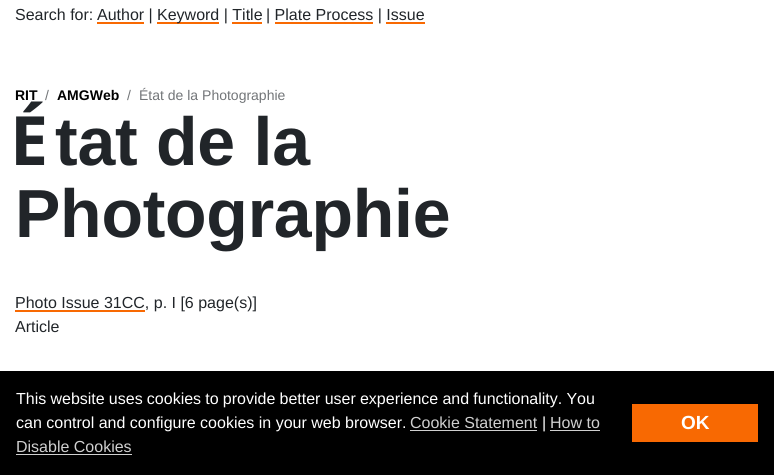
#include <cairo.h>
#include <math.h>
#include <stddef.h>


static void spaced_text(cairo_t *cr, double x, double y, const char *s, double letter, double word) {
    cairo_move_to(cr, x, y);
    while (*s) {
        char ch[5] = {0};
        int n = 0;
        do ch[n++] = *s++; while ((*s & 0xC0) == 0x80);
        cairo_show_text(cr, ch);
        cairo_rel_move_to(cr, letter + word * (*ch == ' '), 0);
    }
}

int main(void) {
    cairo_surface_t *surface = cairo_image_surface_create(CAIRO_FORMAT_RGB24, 774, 475);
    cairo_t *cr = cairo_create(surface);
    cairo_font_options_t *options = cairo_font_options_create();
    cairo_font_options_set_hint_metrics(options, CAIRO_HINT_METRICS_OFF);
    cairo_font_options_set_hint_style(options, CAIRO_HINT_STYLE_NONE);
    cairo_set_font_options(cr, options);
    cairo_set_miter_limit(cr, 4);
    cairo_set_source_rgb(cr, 1, 1, 1);
    cairo_paint(cr);
    cairo_select_font_face(cr, "Liberation Sans", CAIRO_FONT_SLANT_NORMAL, CAIRO_FONT_WEIGHT_NORMAL);
    cairo_set_font_size(cr, 16);
    cairo_set_source_rgb(cr, 0.129, 0.145, 0.161);
    cairo_move_to(cr, 15, 20);
    cairo_show_text(cr, "Search for:");
    cairo_set_source_rgb(cr, 0.969, 0.412, 0.008);
    cairo_rectangle(cr, 97, 22, 47, 2);
    cairo_fill(cr);
    cairo_set_source_rgb(cr, 0.129, 0.145, 0.161);
    cairo_move_to(cr, 97, 20);
    cairo_show_text(cr, "Author |");
    cairo_set_source_rgb(cr, 0.969, 0.412, 0.008);
    cairo_rectangle(cr, 157, 22, 62, 2);
    cairo_fill(cr);
    cairo_set_source_rgb(cr, 0.129, 0.145, 0.161);
    cairo_move_to(cr, 157, 20);
    cairo_show_text(cr, "Keyword | Title");
    cairo_move_to(cr, 266, 20);
    cairo_show_text(cr, "| Plate Process | Issue");
    cairo_set_source_rgb(cr, 0.969, 0.412, 0.008);
    cairo_rectangle(cr, 232, 22, 30, 2);
    cairo_fill(cr);
    cairo_rectangle(cr, 275, 22, 98, 2);
    cairo_fill(cr);
    cairo_rectangle(cr, 386, 22, 39, 2);
    cairo_fill(cr);
    cairo_select_font_face(cr, "Liberation Sans", CAIRO_FONT_SLANT_NORMAL, CAIRO_FONT_WEIGHT_BOLD);
    cairo_set_font_size(cr, 14);
    cairo_set_source_rgb(cr, 0, 0, 0);
    cairo_move_to(cr, 15, 100);
    cairo_show_text(cr, "RIT");
    cairo_select_font_face(cr, "Liberation Sans", CAIRO_FONT_SLANT_NORMAL, CAIRO_FONT_WEIGHT_NORMAL);
    cairo_set_source_rgb(cr, 0.447, 0.459, 0.471);
    cairo_move_to(cr, 45, 100);
    cairo_show_text(cr, "/");
    cairo_select_font_face(cr, "Liberation Sans", CAIRO_FONT_SLANT_NORMAL, CAIRO_FONT_WEIGHT_BOLD);
    cairo_set_source_rgb(cr, 0, 0, 0);
    cairo_move_to(cr, 57, 100);
    cairo_show_text(cr, "AMGWeb");
    cairo_select_font_face(cr, "Liberation Sans", CAIRO_FONT_SLANT_NORMAL, CAIRO_FONT_WEIGHT_NORMAL);
    cairo_set_source_rgb(cr, 0.447, 0.459, 0.471);
    cairo_move_to(cr, 127, 100);
    cairo_show_text(cr, "/");
    cairo_move_to(cr, 139, 100);
    cairo_show_text(cr, "État de la Photographie");
    cairo_select_font_face(cr, "Noto Sans", CAIRO_FONT_SLANT_NORMAL, CAIRO_FONT_WEIGHT_BOLD);
    cairo_set_font_size(cr, 68);
    cairo_set_source_rgb(cr, 0.129, 0.145, 0.161);
    spaced_text(cr, 10, 165, "É", -0.25, 0);
    cairo_select_font_face(cr, "Liberation Sans", CAIRO_FONT_SLANT_NORMAL, CAIRO_FONT_WEIGHT_BOLD);
    spaced_text(cr, 55, 165, "tat de la", -0.25, 0);
    spaced_text(cr, 15, 237, "Photographie", -0.25, 0);
    cairo_set_source_rgb(cr, 0.969, 0.412, 0.008);
    cairo_rectangle(cr, 15, 310, 130, 2);
    cairo_fill(cr);
    cairo_select_font_face(cr, "Liberation Sans", CAIRO_FONT_SLANT_NORMAL, CAIRO_FONT_WEIGHT_NORMAL);
    cairo_set_font_size(cr, 16);
    cairo_set_source_rgb(cr, 0.129, 0.145, 0.161);
    cairo_move_to(cr, 15, 308);
    cairo_show_text(cr, "Photo Issue 31CC, p. I [6 page(s)]");
    cairo_move_to(cr, 15, 332);
    cairo_show_text(cr, "Article");
    cairo_set_source_rgb(cr, 0, 0, 0);
    cairo_rectangle(cr, 0, 371, 774, 104);
    cairo_fill(cr);
    cairo_set_source_rgb(cr, 1, 1, 1);
    spaced_text(cr, 16, 404, "This website uses cookies to provide better user experience and functionality. You", 0, -0.25);
    cairo_move_to(cr, 16, 428);
    cairo_show_text(cr, "can control and configure cookies in your web browser.");
    cairo_set_source_rgb(cr, 0.816, 0.816, 0.816);
    cairo_move_to(cr, 410, 428);
    cairo_show_text(cr, "Cookie Statement");
    cairo_rectangle(cr, 410, 430, 127, 1);
    cairo_fill(cr);
    cairo_set_source_rgb(cr, 1, 1, 1);
    cairo_move_to(cr, 542, 428);
    cairo_show_text(cr, "|");
    cairo_set_source_rgb(cr, 0.816, 0.816, 0.816);
    cairo_move_to(cr, 550, 428);
    cairo_show_text(cr, "How to");
    cairo_rectangle(cr, 550, 430, 50, 1);
    cairo_fill(cr);
    cairo_move_to(cr, 16, 452);
    cairo_show_text(cr, "Disable Cookies");
    cairo_rectangle(cr, 16, 454, 116, 1);
    cairo_fill(cr);
    cairo_set_source_rgb(cr, 0.969, 0.412, 0.008);
    cairo_rectangle(cr, 632, 404, 126, 38);
    cairo_fill(cr);
    cairo_select_font_face(cr, "Liberation Sans", CAIRO_FONT_SLANT_NORMAL, CAIRO_FONT_WEIGHT_BOLD);
    cairo_set_font_size(cr, 19);
    cairo_set_source_rgb(cr, 1, 1, 1);
    cairo_move_to(cr, 681, 429);
    cairo_show_text(cr, "OK");
    cairo_surface_write_to_png(surface, "page.png");
    cairo_font_options_destroy(options);
    cairo_destroy(cr);
    cairo_surface_destroy(surface);
    return 0;
}
